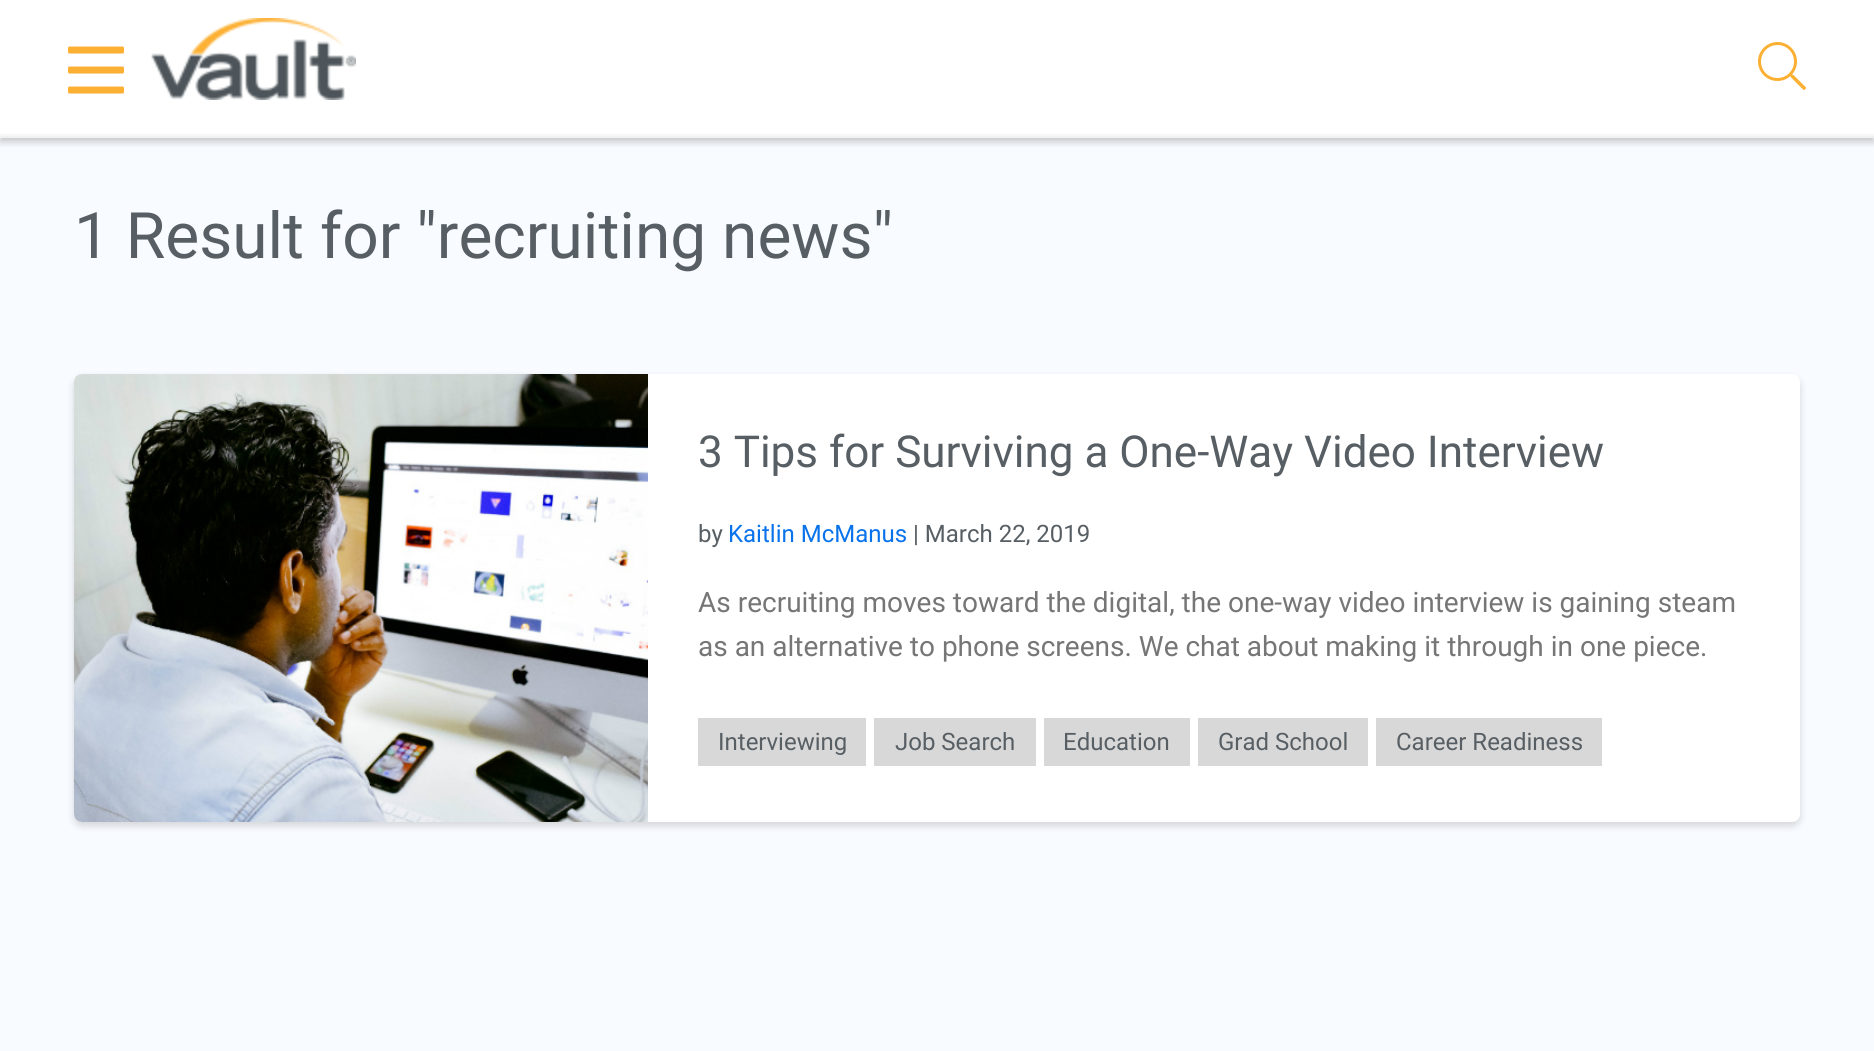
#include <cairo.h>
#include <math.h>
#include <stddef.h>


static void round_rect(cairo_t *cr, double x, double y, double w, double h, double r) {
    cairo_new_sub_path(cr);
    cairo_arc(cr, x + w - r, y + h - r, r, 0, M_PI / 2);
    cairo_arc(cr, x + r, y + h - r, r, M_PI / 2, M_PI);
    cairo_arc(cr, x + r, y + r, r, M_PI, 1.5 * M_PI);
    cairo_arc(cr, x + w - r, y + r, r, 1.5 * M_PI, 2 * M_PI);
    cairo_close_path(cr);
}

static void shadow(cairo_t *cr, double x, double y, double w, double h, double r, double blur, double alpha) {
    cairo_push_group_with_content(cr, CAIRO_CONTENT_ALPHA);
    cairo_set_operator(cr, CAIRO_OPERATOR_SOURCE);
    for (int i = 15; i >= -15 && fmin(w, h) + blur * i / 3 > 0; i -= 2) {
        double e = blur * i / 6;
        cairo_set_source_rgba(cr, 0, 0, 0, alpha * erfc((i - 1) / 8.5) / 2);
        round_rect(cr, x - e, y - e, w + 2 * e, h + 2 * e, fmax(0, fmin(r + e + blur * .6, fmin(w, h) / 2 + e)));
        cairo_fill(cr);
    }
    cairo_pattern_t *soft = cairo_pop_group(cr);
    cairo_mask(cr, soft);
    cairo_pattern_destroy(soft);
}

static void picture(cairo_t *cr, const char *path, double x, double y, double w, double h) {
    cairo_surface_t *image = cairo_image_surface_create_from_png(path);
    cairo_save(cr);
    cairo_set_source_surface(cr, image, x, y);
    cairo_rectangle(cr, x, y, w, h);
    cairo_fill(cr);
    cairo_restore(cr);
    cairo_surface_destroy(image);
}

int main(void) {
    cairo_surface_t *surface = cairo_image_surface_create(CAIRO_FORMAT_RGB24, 1874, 1051);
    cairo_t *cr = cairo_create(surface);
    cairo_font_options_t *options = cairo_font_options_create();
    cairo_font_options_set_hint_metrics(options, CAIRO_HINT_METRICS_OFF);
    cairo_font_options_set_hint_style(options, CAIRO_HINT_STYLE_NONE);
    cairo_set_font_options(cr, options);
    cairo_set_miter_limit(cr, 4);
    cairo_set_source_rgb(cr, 1, 1, 1);
    cairo_paint(cr);
    cairo_set_source_rgb(cr, 0.969, 0.984, 1);
    cairo_rectangle(cr, 0, 138, 1874, 913);
    cairo_fill(cr);
    cairo_save(cr);
    cairo_rectangle(cr, 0, 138, 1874, 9);
    cairo_clip(cr);
    cairo_set_source_rgb(cr, 0, 0, 0);
    shadow(cr, 0, 4, 1874, 138, 0, 4, 0.21);
    cairo_restore(cr);
    cairo_set_source_rgb(cr, 0.941, 0.945, 0.945);
    cairo_rectangle(cr, 0, 136, 1874, 2);
    cairo_fill(cr);
    cairo_set_source_rgb(cr, 0.965, 0.965, 0.961);
    cairo_rectangle(cr, 0, 134, 1874, 2);
    cairo_fill(cr);
    picture(cr, "img1.png", 68, 46, 56, 48);
    picture(cr, "img2.png", 151, 18, 205, 82);
    picture(cr, "img3.png", 1758, 42, 48, 48);
    cairo_select_font_face(cr, "Roboto", CAIRO_FONT_SLANT_NORMAL, CAIRO_FONT_WEIGHT_NORMAL);
    cairo_set_font_size(cr, 64);
    cairo_set_source_rgb(cr, 0.345, 0.373, 0.392);
    cairo_move_to(cr, 74, 258);
    cairo_show_text(cr, "1 Result for \"recruiting news\"");
    cairo_set_source_rgb(cr, 0, 0, 0);
    shadow(cr, 74, 378, 1726, 448, 8, 4, 0.15);
    cairo_set_source_rgb(cr, 1, 1, 1);
    round_rect(cr, 74, 374, 1726, 448, 8);
    cairo_fill(cr);
    picture(cr, "img4.png", 74, 374, 574, 448);
    cairo_set_font_size(cr, 44);
    cairo_set_source_rgb(cr, 0.345, 0.373, 0.392);
    cairo_move_to(cr, 698, 467);
    cairo_show_text(cr, "3 Tips for Surviving a One-Way Video Interview");
    cairo_set_font_size(cr, 24);
    cairo_move_to(cr, 698, 542);
    cairo_show_text(cr, "by");
    cairo_set_source_rgb(cr, 0.039, 0.451, 0.922);
    cairo_move_to(cr, 728, 542);
    cairo_show_text(cr, "Kaitlin McManus");
    cairo_set_source_rgb(cr, 0.345, 0.373, 0.392);
    cairo_move_to(cr, 913, 542);
    cairo_show_text(cr, "| March 22, 2019");
    cairo_set_font_size(cr, 28);
    cairo_set_source_rgb(cr, 0.463, 0.463, 0.463);
    cairo_move_to(cr, 698, 612);
    cairo_show_text(cr, "As recruiting moves toward the digital, the one-way video interview is gaining steam");
    cairo_move_to(cr, 698, 656);
    cairo_show_text(cr, "as an alternative to phone screens. We chat about making it through in one piece.");
    cairo_set_source_rgb(cr, 0.847, 0.847, 0.847);
    cairo_rectangle(cr, 698, 718, 168, 48);
    cairo_fill(cr);
    cairo_set_font_size(cr, 24);
    cairo_set_source_rgb(cr, 0.345, 0.373, 0.392);
    cairo_move_to(cr, 718, 750);
    cairo_show_text(cr, "Interviewing");
    cairo_set_source_rgb(cr, 0.847, 0.847, 0.847);
    cairo_rectangle(cr, 874, 718, 162, 48);
    cairo_fill(cr);
    cairo_set_source_rgb(cr, 0.345, 0.373, 0.392);
    cairo_move_to(cr, 895, 750);
    cairo_show_text(cr, "Job Search");
    cairo_set_source_rgb(cr, 0.847, 0.847, 0.847);
    cairo_rectangle(cr, 1044, 718, 146, 48);
    cairo_fill(cr);
    cairo_set_source_rgb(cr, 0.345, 0.373, 0.392);
    cairo_move_to(cr, 1063, 750);
    cairo_show_text(cr, "Education");
    cairo_set_source_rgb(cr, 0.847, 0.847, 0.847);
    cairo_rectangle(cr, 1198, 718, 170, 48);
    cairo_fill(cr);
    cairo_set_source_rgb(cr, 0.345, 0.373, 0.392);
    cairo_move_to(cr, 1218, 750);
    cairo_show_text(cr, "Grad School");
    cairo_set_source_rgb(cr, 0.847, 0.847, 0.847);
    cairo_rectangle(cr, 1376, 718, 226, 48);
    cairo_fill(cr);
    cairo_set_source_rgb(cr, 0.345, 0.373, 0.392);
    cairo_move_to(cr, 1396, 750);
    cairo_show_text(cr, "Career Readiness");
    cairo_surface_write_to_png(surface, "page.png");
    cairo_font_options_destroy(options);
    cairo_destroy(cr);
    cairo_surface_destroy(surface);
    return 0;
}
